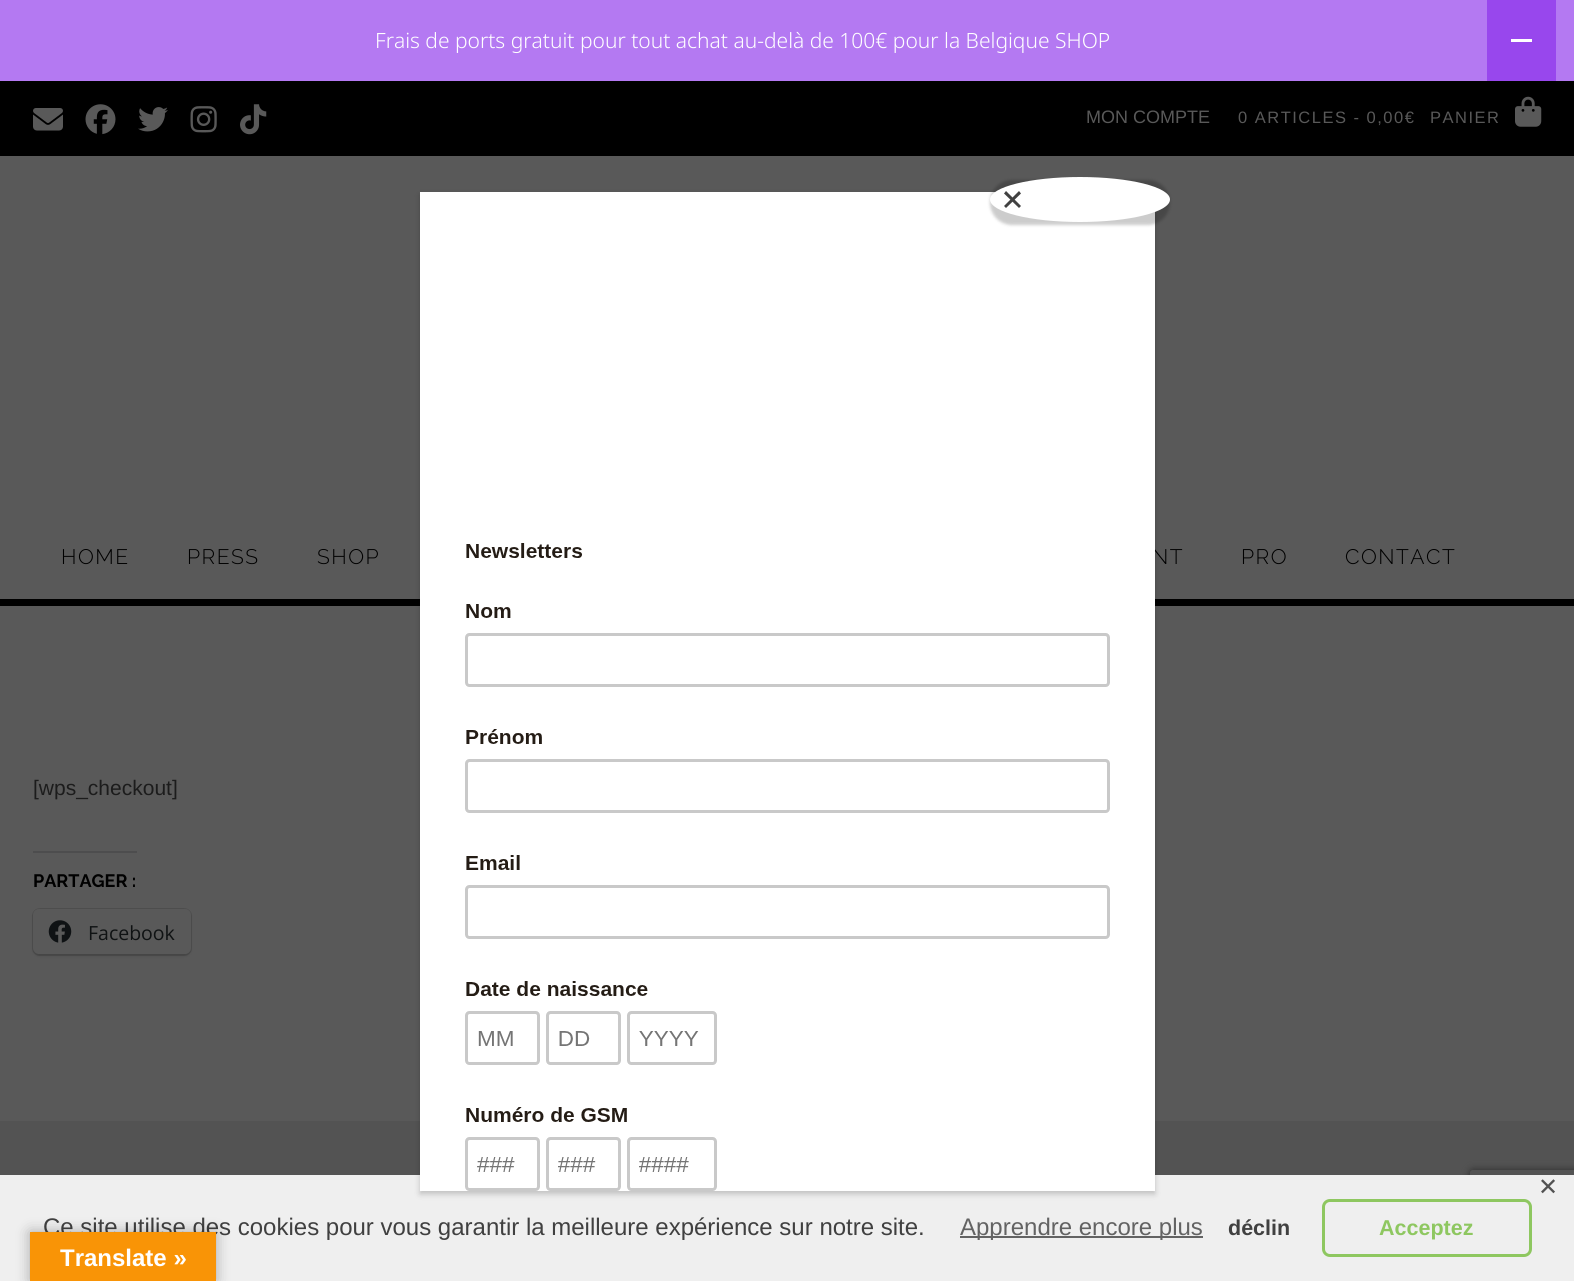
#include <cairo.h>
#include <math.h>
#include <stddef.h>


static void spaced_text(cairo_t *cr, double x, double y, const char *s, double letter, double word) {
    cairo_move_to(cr, x, y);
    while (*s) {
        char ch[5] = {0};
        int n = 0;
        do ch[n++] = *s++; while ((*s & 0xC0) == 0x80);
        cairo_show_text(cr, ch);
        cairo_rel_move_to(cr, letter + word * (*ch == ' '), 0);
    }
}

static void round_rect(cairo_t *cr, double x, double y, double w, double h, double r) {
    cairo_new_sub_path(cr);
    cairo_arc(cr, x + w - r, y + h - r, r, 0, M_PI / 2);
    cairo_arc(cr, x + r, y + h - r, r, M_PI / 2, M_PI);
    cairo_arc(cr, x + r, y + r, r, M_PI, 1.5 * M_PI);
    cairo_arc(cr, x + w - r, y + r, r, 1.5 * M_PI, 2 * M_PI);
    cairo_close_path(cr);
}

static void shadow(cairo_t *cr, double x, double y, double w, double h, double r, double blur, double alpha) {
    cairo_push_group_with_content(cr, CAIRO_CONTENT_ALPHA);
    cairo_set_operator(cr, CAIRO_OPERATOR_SOURCE);
    for (int i = 15; i >= -15 && fmin(w, h) + blur * i / 3 > 0; i -= 2) {
        double e = blur * i / 6;
        cairo_set_source_rgba(cr, 0, 0, 0, alpha * erfc((i - 1) / 8.5) / 2);
        round_rect(cr, x - e, y - e, w + 2 * e, h + 2 * e, fmax(0, fmin(r + e + blur * .6, fmin(w, h) / 2 + e)));
        cairo_fill(cr);
    }
    cairo_pattern_t *soft = cairo_pop_group(cr);
    cairo_mask(cr, soft);
    cairo_pattern_destroy(soft);
}

static void picture(cairo_t *cr, const char *path, double x, double y, double w, double h) {
    cairo_surface_t *image = cairo_image_surface_create_from_png(path);
    cairo_save(cr);
    cairo_set_source_surface(cr, image, x, y);
    cairo_rectangle(cr, x, y, w, h);
    cairo_fill(cr);
    cairo_restore(cr);
    cairo_surface_destroy(image);
}

int main(void) {
    cairo_surface_t *surface = cairo_image_surface_create(CAIRO_FORMAT_RGB24, 1574, 1281);
    cairo_t *cr = cairo_create(surface);
    cairo_font_options_t *options = cairo_font_options_create();
    cairo_font_options_set_hint_metrics(options, CAIRO_HINT_METRICS_OFF);
    cairo_font_options_set_hint_style(options, CAIRO_HINT_STYLE_NONE);
    cairo_set_font_options(cr, options);
    cairo_set_miter_limit(cr, 4);
    cairo_set_source_rgb(cr, 0.349, 0.349, 0.349);
    cairo_paint(cr);
    cairo_set_source_rgb(cr, 0.706, 0.475, 0.949);
    cairo_rectangle(cr, 0, 0, 1574, 81);
    cairo_fill(cr);
    cairo_select_font_face(cr, "Noto Sans Light", CAIRO_FONT_SLANT_NORMAL, CAIRO_FONT_WEIGHT_NORMAL);
    cairo_set_font_size(cr, 21);
    cairo_set_source_rgb(cr, 1, 1, 1);
    cairo_move_to(cr, 375, 48);
    cairo_show_text(cr, "Frais de ports gratuit pour tout achat au-delà de 100€ pour la Belgique SHOP");
    cairo_set_source_rgb(cr, 0.596, 0.278, 0.929);
    cairo_rectangle(cr, 1487, 0, 69, 81);
    cairo_fill(cr);
    cairo_set_source_rgb(cr, 1, 1, 1);
    cairo_rectangle(cr, 1511, 39, 21, 3);
    cairo_fill(cr);
    cairo_set_source_rgb(cr, 0, 0, 0);
    cairo_rectangle(cr, 0, 81, 1574, 75);
    cairo_fill(cr);
    picture(cr, "img1.png", 33, 108, 30, 23);
    picture(cr, "img2.png", 85, 104, 31, 31);
    picture(cr, "img3.png", 138, 107, 30, 25);
    picture(cr, "img4.png", 190, 106, 27, 27);
    picture(cr, "img5.png", 240, 104, 27, 31);
    cairo_select_font_face(cr, "Liberation Sans", CAIRO_FONT_SLANT_NORMAL, CAIRO_FONT_WEIGHT_NORMAL);
    cairo_set_font_size(cr, 18);
    cairo_set_source_rgb(cr, 0.349, 0.349, 0.349);
    cairo_move_to(cr, 1086, 123);
    cairo_show_text(cr, "MON COMPTE");
    cairo_set_font_size(cr, 16.5);
    spaced_text(cr, 1238, 123, "0 ARTICLES - 0,00€", 1.5, 0);
    spaced_text(cr, 1430, 123, "PANIER", 1.5, 0);
    picture(cr, "img6.png", 1515, 96, 27, 31);
    cairo_set_source_rgb(cr, 0, 0, 0);
    cairo_rectangle(cr, 0, 599, 1574, 7);
    cairo_fill(cr);
    cairo_select_font_face(cr, "Raleway Light", CAIRO_FONT_SLANT_NORMAL, CAIRO_FONT_WEIGHT_NORMAL);
    cairo_set_font_size(cr, 21);
    spaced_text(cr, 61, 564, "HOME", 1.5, 0);
    spaced_text(cr, 187, 564, "PRESS", 1.5, 0);
    spaced_text(cr, 317, 564, "SHOP", 1.5, 0);
    spaced_text(cr, 1152, 564, "NT", 1.5, 0);
    spaced_text(cr, 1241, 564, "PRO", 1.5, 0);
    spaced_text(cr, 1345, 564, "CONTACT", 1.5, 0);
    cairo_select_font_face(cr, "Liberation Sans", CAIRO_FONT_SLANT_NORMAL, CAIRO_FONT_WEIGHT_NORMAL);
    cairo_set_source_rgb(cr, 0.11, 0.11, 0.11);
    cairo_move_to(cr, 33, 795);
    cairo_show_text(cr, "[wps_checkout]");
    cairo_set_source_rgb(cr, 0.302, 0.302, 0.306);
    cairo_rectangle(cr, 33, 851, 104, 2);
    cairo_fill(cr);
    cairo_select_font_face(cr, "Raleway", CAIRO_FONT_SLANT_NORMAL, CAIRO_FONT_WEIGHT_BOLD);
    cairo_set_font_size(cr, 18);
    cairo_set_source_rgb(cr, 0, 0, 0);
    cairo_move_to(cr, 33, 887);
    cairo_show_text(cr, "PARTAGER :");
    round_rect(cr, 33, 909, 158, 46, 7);
    cairo_set_source_rgb(cr, 0.306, 0.306, 0.306);
    cairo_stroke(cr);
    cairo_set_source_rgb(cr, 0, 0, 0);
    shadow(cr, 33, 911, 158, 45, 6, 1.5, 0.12);
    cairo_set_source_rgb(cr, 0.349, 0.349, 0.349);
    round_rect(cr, 33, 909, 158, 45, 6);
    cairo_fill(cr);
    picture(cr, "img7.png", 48, 920, 24, 23);
    cairo_select_font_face(cr, "Open Sans", CAIRO_FONT_SLANT_NORMAL, CAIRO_FONT_WEIGHT_NORMAL);
    cairo_set_font_size(cr, 19.5);
    cairo_set_source_rgb(cr, 0.059, 0.071, 0.078);
    cairo_move_to(cr, 88, 940);
    cairo_show_text(cr, "Facebook");
    cairo_set_source_rgb(cr, 0.325, 0.325, 0.325);
    cairo_rectangle(cr, 0, 1121, 1574, 54);
    cairo_fill(cr);
    cairo_save(cr);
    cairo_set_fill_rule(cr, CAIRO_FILL_RULE_EVEN_ODD);
    cairo_new_path(cr);
    cairo_move_to(cr, 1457, 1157);
    cairo_line_to(cr, 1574, 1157);
    cairo_line_to(cr, 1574, 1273);
    cairo_line_to(cr, 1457, 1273);
    cairo_close_path(cr);
    cairo_move_to(cr, 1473, 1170);
    cairo_line_to(cr, 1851, 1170);
    cairo_curve_to(cr, 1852.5, 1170, 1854, 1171.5, 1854, 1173);
    cairo_line_to(cr, 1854, 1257);
    cairo_curve_to(cr, 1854, 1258.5, 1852.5, 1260, 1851, 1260);
    cairo_line_to(cr, 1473, 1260);
    cairo_curve_to(cr, 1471.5, 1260, 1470, 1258.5, 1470, 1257);
    cairo_line_to(cr, 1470, 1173);
    cairo_curve_to(cr, 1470, 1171.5, 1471.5, 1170, 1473, 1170);
    cairo_close_path(cr);
    cairo_clip(cr);
    cairo_set_source_rgb(cr, 0.176, 0.176, 0.176);
    shadow(cr, 1470, 1170, 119, 90, 3, 4, 1);
    cairo_restore(cr);
    cairo_set_source_rgb(cr, 0.937, 0.937, 0.937);
    cairo_rectangle(cr, 0, 1175, 1574, 106);
    cairo_fill(cr);
    cairo_set_source_rgb(cr, 0, 0, 0);
    shadow(cr, 420, 195, 735, 999, 0, 3, 0.2);
    picture(cr, "img8.png", 420, 192, 735, 999);
    shadow(cr, 990, 180, 180, 45, 22.5, 1.5, 0.2);
    cairo_set_source_rgb(cr, 1, 1, 1);
    cairo_new_path(cr);
    cairo_move_to(cr, 1080, 177);
    cairo_curve_to(cr, 1129.5, 177, 1170, 187, 1170, 199.5);
    cairo_curve_to(cr, 1170, 212, 1129.5, 222, 1080, 222);
    cairo_curve_to(cr, 1030.5, 222, 990, 212, 990, 199.5);
    cairo_curve_to(cr, 990, 187, 1030.5, 177, 1080, 177);
    cairo_close_path(cr);
    cairo_fill(cr);
    cairo_set_source_rgb(cr, 0.255, 0.255, 0.255);
    cairo_new_path(cr);
    cairo_move_to(cr, 1019, 191);
    cairo_line_to(cr, 1021, 193.5);
    cairo_line_to(cr, 1006, 208);
    cairo_line_to(cr, 1004, 206);
    cairo_close_path(cr);
    cairo_fill(cr);
    cairo_new_path(cr);
    cairo_move_to(cr, 1004, 193.5);
    cairo_line_to(cr, 1006, 191);
    cairo_line_to(cr, 1021, 206);
    cairo_line_to(cr, 1019, 208);
    cairo_close_path(cr);
    cairo_fill(cr);
    cairo_select_font_face(cr, "DejaVu Sans", CAIRO_FONT_SLANT_NORMAL, CAIRO_FONT_WEIGHT_NORMAL);
    cairo_set_font_size(cr, 24);
    cairo_set_source_rgb(cr, 0.322, 0.322, 0.322);
    cairo_move_to(cr, 1538, 1195);
    cairo_show_text(cr, "✕");
    cairo_select_font_face(cr, "Liberation Sans", CAIRO_FONT_SLANT_NORMAL, CAIRO_FONT_WEIGHT_NORMAL);
    cairo_set_source_rgb(cr, 0.251, 0.251, 0.251);
    cairo_move_to(cr, 43, 1235);
    cairo_show_text(cr, "Ce site utilise des cookies pour vous garantir la meilleure expérience sur notre site.");
    cairo_set_source_rgb(cr, 0.388, 0.388, 0.388);
    cairo_rectangle(cr, 960, 1236, 243, 2);
    cairo_fill(cr);
    cairo_move_to(cr, 960, 1235);
    cairo_show_text(cr, "Apprendre encore plus");
    cairo_select_font_face(cr, "Liberation Sans", CAIRO_FONT_SLANT_NORMAL, CAIRO_FONT_WEIGHT_BOLD);
    cairo_set_font_size(cr, 21.5);
    cairo_set_source_rgb(cr, 0.251, 0.251, 0.251);
    cairo_move_to(cr, 1228, 1235);
    cairo_show_text(cr, "déclin");
    round_rect(cr, 1323.5, 1200.5, 207, 55, 6.5);
    cairo_set_source_rgb(cr, 0.557, 0.78, 0.376);
    cairo_set_line_width(cr, 3);
    cairo_stroke(cr);
    cairo_move_to(cr, 1379, 1235);
    cairo_show_text(cr, "Acceptez");
    cairo_set_source_rgb(cr, 0, 0, 0);
    shadow(cr, 30, 1232, 186, 49, 0, 7, 0.3);
    cairo_set_source_rgb(cr, 0.973, 0.58, 0.024);
    cairo_rectangle(cr, 30, 1232, 186, 49);
    cairo_fill(cr);
    cairo_set_font_size(cr, 24);
    cairo_set_source_rgb(cr, 1, 1, 1);
    cairo_move_to(cr, 60, 1266);
    cairo_show_text(cr, "Translate »");
    cairo_surface_write_to_png(surface, "page.png");
    cairo_font_options_destroy(options);
    cairo_destroy(cr);
    cairo_surface_destroy(surface);
    return 0;
}
